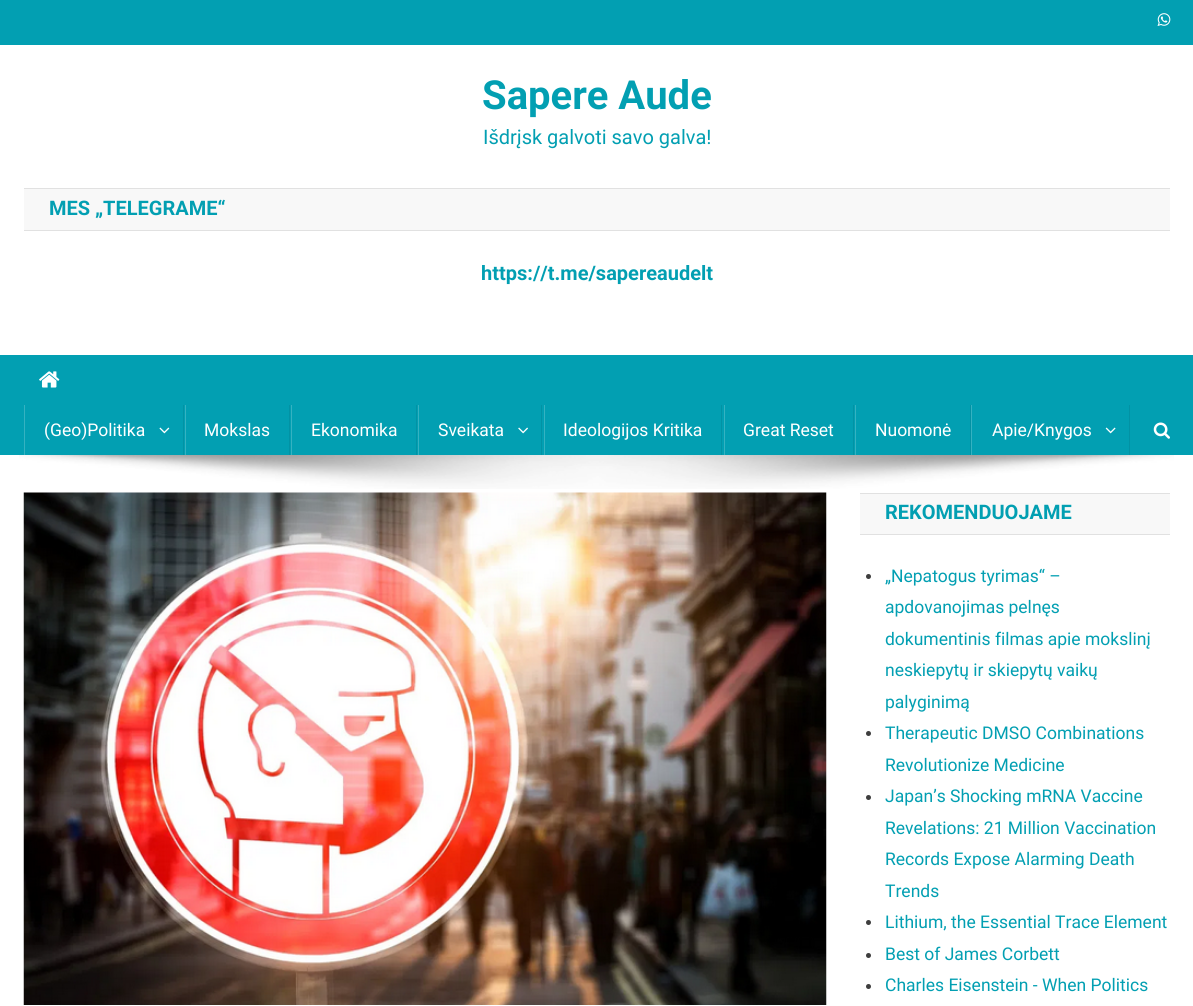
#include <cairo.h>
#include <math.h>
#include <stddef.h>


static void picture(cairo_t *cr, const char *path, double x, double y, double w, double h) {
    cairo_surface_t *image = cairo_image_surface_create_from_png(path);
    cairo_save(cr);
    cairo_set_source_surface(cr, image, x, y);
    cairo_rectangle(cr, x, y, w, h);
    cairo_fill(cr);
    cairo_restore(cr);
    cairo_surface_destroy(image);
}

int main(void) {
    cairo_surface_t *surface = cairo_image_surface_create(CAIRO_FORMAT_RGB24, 1193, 1006);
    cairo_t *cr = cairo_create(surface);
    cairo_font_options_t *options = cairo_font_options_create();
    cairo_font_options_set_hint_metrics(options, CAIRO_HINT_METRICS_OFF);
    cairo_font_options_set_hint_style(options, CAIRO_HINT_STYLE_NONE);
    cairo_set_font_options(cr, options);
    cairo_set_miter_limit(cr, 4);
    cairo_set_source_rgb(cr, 1, 1, 1);
    cairo_paint(cr);
    cairo_set_source_rgb(cr, 0.008, 0.624, 0.698);
    cairo_rectangle(cr, 0, 0, 1193, 45);
    cairo_fill(cr);
    picture(cr, "img1.png", 1157, 13, 14, 13);
    cairo_select_font_face(cr, "Roboto", CAIRO_FONT_SLANT_NORMAL, CAIRO_FONT_WEIGHT_BOLD);
    cairo_set_font_size(cr, 40);
    cairo_move_to(cr, 482, 109);
    cairo_show_text(cr, "Sapere Aude");
    cairo_select_font_face(cr, "Roboto", CAIRO_FONT_SLANT_NORMAL, CAIRO_FONT_WEIGHT_NORMAL);
    cairo_set_font_size(cr, 20);
    cairo_move_to(cr, 483, 144);
    cairo_show_text(cr, "Išdrįsk galvoti savo galva!");
    cairo_set_source_rgb(cr, 0.969, 0.969, 0.969);
    cairo_rectangle(cr, 24, 189, 1146, 41);
    cairo_fill(cr);
    cairo_set_source_rgb(cr, 0.882, 0.882, 0.882);
    cairo_rectangle(cr, 24, 188, 1146, 1);
    cairo_fill(cr);
    cairo_rectangle(cr, 24, 230, 1146, 1);
    cairo_fill(cr);
    cairo_select_font_face(cr, "Roboto", CAIRO_FONT_SLANT_NORMAL, CAIRO_FONT_WEIGHT_BOLD);
    cairo_set_source_rgb(cr, 0.008, 0.624, 0.698);
    cairo_move_to(cr, 49, 215);
    cairo_show_text(cr, "MES „TELEGRAME“");
    cairo_move_to(cr, 481, 280);
    cairo_show_text(cr, "https://t.me/sapereaudelt");
    cairo_rectangle(cr, 0, 355, 1193, 100);
    cairo_fill(cr);
    picture(cr, "img2.png", 39, 371, 21, 17);
    cairo_set_source_rgb(cr, 0.008, 0.573, 0.643);
    cairo_rectangle(cr, 183, 405, 1, 50);
    cairo_fill(cr);
    cairo_set_source_rgb(cr, 0.208, 0.698, 0.757);
    cairo_rectangle(cr, 24, 405, 1, 50);
    cairo_fill(cr);
    cairo_select_font_face(cr, "Roboto", CAIRO_FONT_SLANT_NORMAL, CAIRO_FONT_WEIGHT_NORMAL);
    cairo_set_font_size(cr, 17.5);
    cairo_set_source_rgb(cr, 1, 1, 1);
    cairo_move_to(cr, 44, 436);
    cairo_show_text(cr, "(Geo)Politika");
    picture(cr, "img3.png", 159, 427, 11, 7);
    cairo_set_source_rgb(cr, 0.008, 0.573, 0.643);
    cairo_rectangle(cr, 289, 405, 1, 50);
    cairo_fill(cr);
    cairo_set_source_rgb(cr, 0.208, 0.698, 0.757);
    cairo_rectangle(cr, 185, 405, 1, 50);
    cairo_fill(cr);
    cairo_set_source_rgb(cr, 1, 1, 1);
    cairo_move_to(cr, 204, 436);
    cairo_show_text(cr, "Mokslas");
    cairo_set_source_rgb(cr, 0.008, 0.573, 0.643);
    cairo_rectangle(cr, 416, 405, 1, 50);
    cairo_fill(cr);
    cairo_set_source_rgb(cr, 0.208, 0.698, 0.757);
    cairo_rectangle(cr, 291, 405, 1, 50);
    cairo_fill(cr);
    cairo_set_source_rgb(cr, 1, 1, 1);
    cairo_move_to(cr, 311, 436);
    cairo_show_text(cr, "Ekonomika");
    cairo_set_source_rgb(cr, 0.008, 0.573, 0.643);
    cairo_rectangle(cr, 541, 405, 1, 50);
    cairo_fill(cr);
    cairo_set_source_rgb(cr, 0.208, 0.698, 0.757);
    cairo_rectangle(cr, 418, 405, 1, 50);
    cairo_fill(cr);
    cairo_set_source_rgb(cr, 1, 1, 1);
    cairo_move_to(cr, 438, 436);
    cairo_show_text(cr, "Sveikata");
    picture(cr, "img4.png", 518, 427, 10, 7);
    cairo_set_source_rgb(cr, 0.008, 0.573, 0.643);
    cairo_rectangle(cr, 721, 405, 1, 50);
    cairo_fill(cr);
    cairo_set_source_rgb(cr, 0.208, 0.698, 0.757);
    cairo_rectangle(cr, 544, 405, 1, 50);
    cairo_fill(cr);
    cairo_set_source_rgb(cr, 1, 1, 1);
    cairo_move_to(cr, 563, 436);
    cairo_show_text(cr, "Ideologijos Kritika");
    cairo_set_source_rgb(cr, 0.008, 0.573, 0.643);
    cairo_rectangle(cr, 853, 405, 1, 50);
    cairo_fill(cr);
    cairo_set_source_rgb(cr, 0.208, 0.698, 0.757);
    cairo_rectangle(cr, 724, 405, 1, 50);
    cairo_fill(cr);
    cairo_set_source_rgb(cr, 1, 1, 1);
    cairo_move_to(cr, 743, 436);
    cairo_show_text(cr, "Great Reset");
    cairo_set_source_rgb(cr, 0.008, 0.573, 0.643);
    cairo_rectangle(cr, 970, 405, 1, 50);
    cairo_fill(cr);
    cairo_set_source_rgb(cr, 0.208, 0.698, 0.757);
    cairo_rectangle(cr, 855, 405, 1, 50);
    cairo_fill(cr);
    cairo_set_source_rgb(cr, 1, 1, 1);
    cairo_move_to(cr, 875, 436);
    cairo_show_text(cr, "Nuomonė");
    cairo_set_source_rgb(cr, 0.008, 0.573, 0.643);
    cairo_rectangle(cr, 1129, 405, 1, 50);
    cairo_fill(cr);
    cairo_set_source_rgb(cr, 0.208, 0.698, 0.757);
    cairo_rectangle(cr, 971, 405, 1, 50);
    cairo_fill(cr);
    cairo_set_source_rgb(cr, 1, 1, 1);
    cairo_move_to(cr, 992, 436);
    cairo_show_text(cr, "Apie/Knygos");
    picture(cr, "img5.png", 1105, 427, 11, 7);
    picture(cr, "img6.png", 1153, 422, 17, 17);
    picture(cr, "img7.png", 19, 455, 1155, 34);
    picture(cr, "img8.png", 23, 492, 804, 513);
    cairo_set_source_rgb(cr, 0.969, 0.969, 0.969);
    cairo_rectangle(cr, 860, 494, 310, 40);
    cairo_fill(cr);
    cairo_set_source_rgb(cr, 0.882, 0.882, 0.882);
    cairo_rectangle(cr, 860, 493, 310, 1);
    cairo_fill(cr);
    cairo_rectangle(cr, 860, 534, 310, 1);
    cairo_fill(cr);
    cairo_select_font_face(cr, "Roboto", CAIRO_FONT_SLANT_NORMAL, CAIRO_FONT_WEIGHT_BOLD);
    cairo_set_font_size(cr, 20);
    cairo_set_source_rgb(cr, 0.008, 0.624, 0.698);
    cairo_move_to(cr, 885, 519);
    cairo_show_text(cr, "REKOMENDUOJAME");
    cairo_set_source_rgb(cr, 0.239, 0.239, 0.239);
    cairo_new_path(cr);
    cairo_arc(cr, 868.5, 576.5, 2.5, 0, 2 * M_PI);
    cairo_fill(cr);
    cairo_select_font_face(cr, "Roboto", CAIRO_FONT_SLANT_NORMAL, CAIRO_FONT_WEIGHT_NORMAL);
    cairo_set_font_size(cr, 17.5);
    cairo_set_source_rgb(cr, 0.008, 0.624, 0.698);
    cairo_move_to(cr, 885, 582);
    cairo_show_text(cr, "„Nepatogus tyrimas“ –");
    cairo_move_to(cr, 885, 613);
    cairo_show_text(cr, "apdovanojimas pelnęs");
    cairo_move_to(cr, 885, 645);
    cairo_show_text(cr, "dokumentinis filmas apie mokslinį");
    cairo_move_to(cr, 885, 676);
    cairo_show_text(cr, "neskiepytų ir skiepytų vaikų");
    cairo_move_to(cr, 885, 708);
    cairo_show_text(cr, "palyginimą");
    cairo_set_source_rgb(cr, 0.239, 0.239, 0.239);
    cairo_new_path(cr);
    cairo_arc(cr, 868.5, 733.5, 2.5, 0, 2 * M_PI);
    cairo_fill(cr);
    cairo_set_source_rgb(cr, 0.008, 0.624, 0.698);
    cairo_move_to(cr, 885, 739);
    cairo_show_text(cr, "Therapeutic DMSO Combinations");
    cairo_move_to(cr, 885, 771);
    cairo_show_text(cr, "Revolutionize Medicine");
    cairo_set_source_rgb(cr, 0.239, 0.239, 0.239);
    cairo_new_path(cr);
    cairo_arc(cr, 868.5, 797.5, 2.5, 0, 2 * M_PI);
    cairo_fill(cr);
    cairo_set_source_rgb(cr, 0.008, 0.624, 0.698);
    cairo_move_to(cr, 885, 802);
    cairo_show_text(cr, "Japan’s Shocking mRNA Vaccine");
    cairo_move_to(cr, 885, 834);
    cairo_show_text(cr, "Revelations: 21 Million Vaccination");
    cairo_move_to(cr, 885, 865);
    cairo_show_text(cr, "Records Expose Alarming Death");
    cairo_move_to(cr, 885, 897);
    cairo_show_text(cr, "Trends");
    cairo_set_source_rgb(cr, 0.239, 0.239, 0.239);
    cairo_new_path(cr);
    cairo_arc(cr, 868.5, 922.5, 2.5, 0, 2 * M_PI);
    cairo_fill(cr);
    cairo_set_source_rgb(cr, 0.008, 0.624, 0.698);
    cairo_move_to(cr, 885, 928);
    cairo_show_text(cr, "Lithium, the Essential Trace Element");
    cairo_set_source_rgb(cr, 0.239, 0.239, 0.239);
    cairo_new_path(cr);
    cairo_arc(cr, 868.5, 955.5, 2.5, 0, 2 * M_PI);
    cairo_fill(cr);
    cairo_set_source_rgb(cr, 0.008, 0.624, 0.698);
    cairo_move_to(cr, 885, 960);
    cairo_show_text(cr, "Best of James Corbett");
    cairo_set_source_rgb(cr, 0.239, 0.239, 0.239);
    cairo_new_path(cr);
    cairo_arc(cr, 868.5, 986.5, 2.5, 0, 2 * M_PI);
    cairo_fill(cr);
    cairo_set_source_rgb(cr, 0.008, 0.624, 0.698);
    cairo_move_to(cr, 885, 991);
    cairo_show_text(cr, "Charles Eisenstein - When Politics");
    cairo_surface_write_to_png(surface, "page.png");
    cairo_font_options_destroy(options);
    cairo_destroy(cr);
    cairo_surface_destroy(surface);
    return 0;
}
